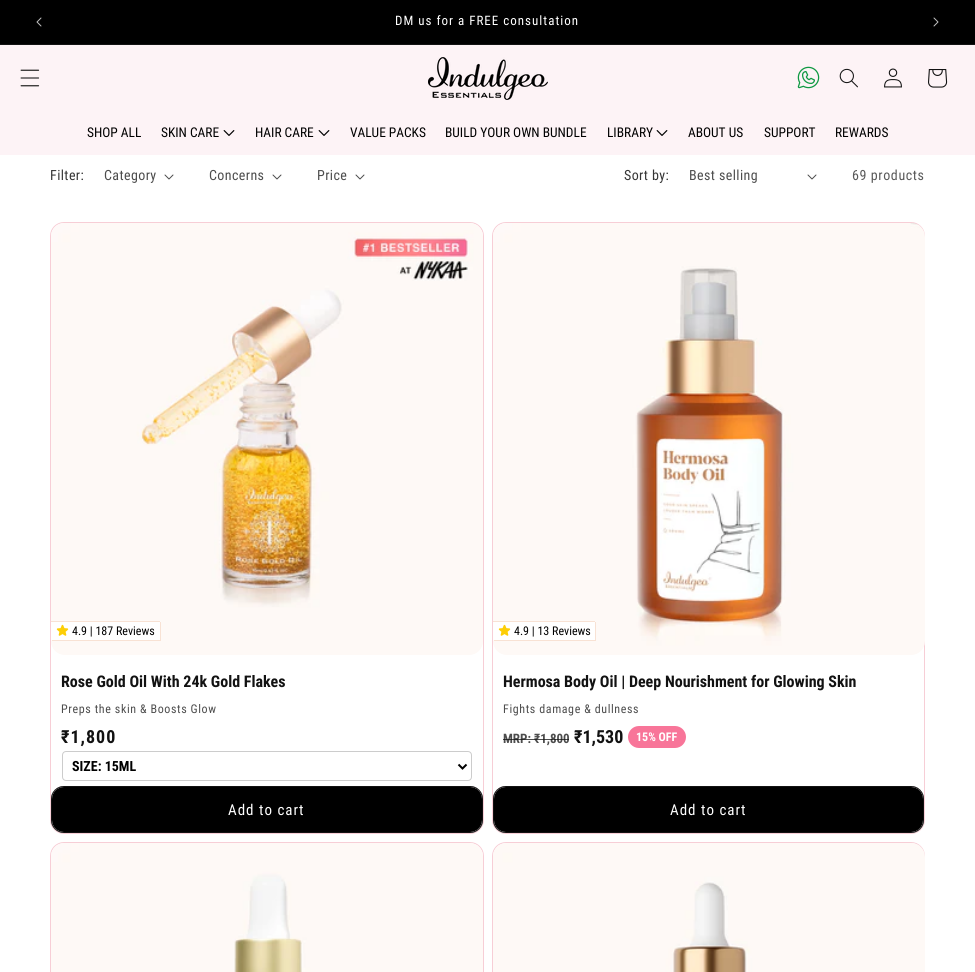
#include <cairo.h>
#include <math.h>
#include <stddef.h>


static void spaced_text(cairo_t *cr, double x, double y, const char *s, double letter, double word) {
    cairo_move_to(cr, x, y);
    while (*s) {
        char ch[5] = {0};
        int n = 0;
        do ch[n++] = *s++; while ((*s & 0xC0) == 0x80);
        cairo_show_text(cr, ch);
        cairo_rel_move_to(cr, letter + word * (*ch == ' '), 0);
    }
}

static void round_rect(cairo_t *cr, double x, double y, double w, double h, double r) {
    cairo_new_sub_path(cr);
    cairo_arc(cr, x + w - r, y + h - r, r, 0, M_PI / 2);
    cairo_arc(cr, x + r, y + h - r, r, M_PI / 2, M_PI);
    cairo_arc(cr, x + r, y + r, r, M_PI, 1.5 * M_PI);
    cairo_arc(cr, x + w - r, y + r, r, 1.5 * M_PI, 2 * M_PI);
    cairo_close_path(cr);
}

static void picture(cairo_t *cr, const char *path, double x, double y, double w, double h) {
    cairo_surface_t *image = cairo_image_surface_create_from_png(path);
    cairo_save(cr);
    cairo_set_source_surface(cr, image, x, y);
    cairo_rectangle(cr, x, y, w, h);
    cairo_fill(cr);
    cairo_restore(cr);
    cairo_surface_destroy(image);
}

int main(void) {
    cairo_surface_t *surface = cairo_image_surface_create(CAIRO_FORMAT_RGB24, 975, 972);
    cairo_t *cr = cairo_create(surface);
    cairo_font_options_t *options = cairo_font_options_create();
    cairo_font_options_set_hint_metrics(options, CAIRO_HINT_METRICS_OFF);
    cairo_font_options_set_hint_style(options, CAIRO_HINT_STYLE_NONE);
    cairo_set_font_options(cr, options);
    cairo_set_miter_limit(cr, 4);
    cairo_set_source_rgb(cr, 1, 1, 1);
    cairo_paint(cr);
    cairo_set_source_rgb(cr, 0, 0, 0);
    cairo_rectangle(cr, 0, 0, 975, 44);
    cairo_fill(cr);
    cairo_set_source_rgb(cr, 0.078, 0.078, 0.078);
    cairo_rectangle(cr, 0, 44, 975, 1);
    cairo_fill(cr);
    picture(cr, "img1.png", 36, 17, 6, 10);
    cairo_select_font_face(cr, "Roboto Condensed", CAIRO_FONT_SLANT_NORMAL, CAIRO_FONT_WEIGHT_NORMAL);
    cairo_set_font_size(cr, 13);
    cairo_set_source_rgb(cr, 1, 1, 1);
    spaced_text(cr, 395, 25, "DM us for a FREE consultation", 1, 0);
    picture(cr, "img2.png", 933, 17, 6, 10);
    cairo_set_source_rgb(cr, 0.992, 0.953, 0.961);
    cairo_rectangle(cr, 0, 45, 975, 110);
    cairo_fill(cr);
    picture(cr, "img3.png", 20, 69, 20, 18);
    picture(cr, "img4.png", 428, 57, 120, 43);
    picture(cr, "img5.png", 797, 66, 23, 23);
    picture(cr, "img6.png", 839, 68, 19, 20);
    picture(cr, "img7.png", 884, 68, 18, 20);
    picture(cr, "img8.png", 928, 69, 20, 19);
    cairo_set_font_size(cr, 13.4);
    cairo_set_source_rgb(cr, 0, 0, 0);
    cairo_move_to(cr, 87, 137);
    cairo_show_text(cr, "SHOP ALL");
    cairo_move_to(cr, 161, 137);
    cairo_show_text(cr, "SKIN CARE");
    picture(cr, "img9.png", 223, 130, 12, 6);
    cairo_move_to(cr, 255, 137);
    cairo_show_text(cr, "HAIR CARE");
    picture(cr, "img9.png", 318, 130, 12, 6);
    cairo_move_to(cr, 350, 137);
    cairo_show_text(cr, "VALUE PACKS");
    cairo_move_to(cr, 445, 137);
    cairo_show_text(cr, "BUILD YOUR OWN BUNDLE");
    cairo_move_to(cr, 607, 137);
    cairo_show_text(cr, "LIBRARY");
    picture(cr, "img9.png", 656, 130, 12, 6);
    cairo_move_to(cr, 688, 137);
    cairo_show_text(cr, "ABOUT US");
    cairo_move_to(cr, 764, 137);
    cairo_show_text(cr, "SUPPORT");
    cairo_move_to(cr, 835, 137);
    cairo_show_text(cr, "REWARDS");
    cairo_set_font_size(cr, 14);
    cairo_set_source_rgb(cr, 0.212, 0.212, 0.212);
    spaced_text(cr, 50, 180, "Filter:", 0.4, 0);
    cairo_set_source_rgb(cr, 0.302, 0.302, 0.302);
    spaced_text(cr, 104, 180, "Category", 0.4, 0);
    picture(cr, "img10.png", 164, 174, 10, 6);
    spaced_text(cr, 209, 180, "Concerns", 0.4, 0);
    picture(cr, "img10.png", 272, 174, 10, 6);
    spaced_text(cr, 317, 180, "Price", 0.4, 0);
    picture(cr, "img10.png", 355, 174, 10, 6);
    cairo_set_source_rgb(cr, 0.212, 0.212, 0.212);
    spaced_text(cr, 624, 180, "Sort by:", 0.4, 0);
    cairo_set_source_rgb(cr, 0.302, 0.302, 0.302);
    spaced_text(cr, 689, 180, "Best selling", 0.4, 0);
    picture(cr, "img10.png", 807, 174, 10, 6);
    cairo_set_source_rgb(cr, 0.349, 0.349, 0.349);
    spaced_text(cr, 852, 180, "69 products", 0.6, 0);
    round_rect(cr, 50.5, 222.5, 433, 611, 13.5);
    cairo_set_source_rgb(cr, 0.965, 0.808, 0.839);
    cairo_set_line_width(cr, 1);
    cairo_stroke(cr);
    picture(cr, "img11.png", 51, 223, 432, 432);
    cairo_set_source_rgb(cr, 1, 1, 1);
    cairo_new_path(cr);
    cairo_move_to(cr, 51, 621);
    cairo_line_to(cr, 159, 621);
    cairo_curve_to(cr, 160, 621, 161, 622, 161, 623);
    cairo_line_to(cr, 161, 641);
    cairo_line_to(cr, 53, 641);
    cairo_curve_to(cr, 52, 641, 51, 640, 51, 639);
    cairo_close_path(cr);
    cairo_fill(cr);
    cairo_set_source_rgb(cr, 0.969, 0.886, 0.831);
    cairo_rectangle(cr, 51, 621, 109, 1);
    cairo_fill(cr);
    cairo_rectangle(cr, 160, 622, 1, 19);
    cairo_fill(cr);
    cairo_rectangle(cr, 52, 640, 109, 1);
    cairo_fill(cr);
    picture(cr, "img12.png", 56, 624, 13, 12);
    cairo_set_font_size(cr, 12);
    cairo_set_source_rgb(cr, 0, 0, 0);
    cairo_move_to(cr, 72, 635);
    cairo_show_text(cr, "4.9 | 187 Reviews");
    cairo_select_font_face(cr, "Roboto Condensed", CAIRO_FONT_SLANT_NORMAL, CAIRO_FONT_WEIGHT_BOLD);
    cairo_set_font_size(cr, 16);
    cairo_set_source_rgb(cr, 0.071, 0.071, 0.071);
    cairo_move_to(cr, 61, 687);
    cairo_show_text(cr, "Rose Gold Oil With 24k Gold Flakes");
    cairo_select_font_face(cr, "Roboto Condensed", CAIRO_FONT_SLANT_NORMAL, CAIRO_FONT_WEIGHT_NORMAL);
    cairo_set_font_size(cr, 12);
    cairo_set_source_rgb(cr, 0.302, 0.302, 0.302);
    spaced_text(cr, 61, 713, "Preps the skin & Boosts Glow", 0.6, 0);
    cairo_select_font_face(cr, "Roboto Condensed", CAIRO_FONT_SLANT_NORMAL, CAIRO_FONT_WEIGHT_BOLD);
    cairo_set_font_size(cr, 18);
    cairo_set_source_rgb(cr, 0.071, 0.071, 0.071);
    spaced_text(cr, 61, 743, "₹1,800", 1, 0);
    round_rect(cr, 62.5, 751.5, 409, 29, 3.5);
    cairo_set_source_rgb(cr, 0.8, 0.8, 0.8);
    cairo_stroke(cr);
    cairo_new_path(cr);
    cairo_move_to(cr, 458.5, 764.5);
    cairo_line_to(cr, 462.5, 768.5);
    cairo_line_to(cr, 466.5, 764.5);
    cairo_set_source_rgb(cr, 0, 0, 0);
    cairo_set_line_width(cr, 2);
    cairo_stroke(cr);
    cairo_set_font_size(cr, 14);
    cairo_move_to(cr, 72, 771);
    cairo_show_text(cr, "SIZE: 15ML");
    round_rect(cr, 51, 786, 432, 47, 13);
    cairo_fill(cr);
    round_rect(cr, 51.5, 786.5, 431, 46, 12.5);
    cairo_set_source_rgb(cr, 0.992, 0.953, 0.961);
    cairo_set_line_width(cr, 1);
    cairo_stroke(cr);
    round_rect(cr, 51.5, 786.5, 431, 46, 12.5);
    cairo_set_source_rgb(cr, 0.071, 0.071, 0.071);
    cairo_stroke(cr);
    cairo_select_font_face(cr, "Roboto Condensed", CAIRO_FONT_SLANT_NORMAL, CAIRO_FONT_WEIGHT_NORMAL);
    cairo_set_font_size(cr, 15);
    cairo_set_source_rgb(cr, 1, 1, 1);
    spaced_text(cr, 228, 815, "Add to cart", 1, 0);
    round_rect(cr, 492.5, 222.5, 432, 611, 13.5);
    cairo_set_source_rgb(cr, 0.965, 0.808, 0.839);
    cairo_stroke(cr);
    picture(cr, "img13.png", 493, 223, 432, 432);
    cairo_set_source_rgb(cr, 1, 1, 1);
    cairo_new_path(cr);
    cairo_move_to(cr, 493, 621);
    cairo_line_to(cr, 594, 621);
    cairo_curve_to(cr, 595, 621, 596, 622, 596, 623);
    cairo_line_to(cr, 596, 641);
    cairo_line_to(cr, 495, 641);
    cairo_curve_to(cr, 494, 641, 493, 640, 493, 639);
    cairo_close_path(cr);
    cairo_fill(cr);
    cairo_set_source_rgb(cr, 0.969, 0.886, 0.831);
    cairo_rectangle(cr, 493, 621, 102, 1);
    cairo_fill(cr);
    cairo_rectangle(cr, 595, 622, 1, 19);
    cairo_fill(cr);
    cairo_rectangle(cr, 494, 640, 102, 1);
    cairo_fill(cr);
    picture(cr, "img12.png", 498, 624, 13, 12);
    cairo_set_font_size(cr, 12);
    cairo_set_source_rgb(cr, 0, 0, 0);
    cairo_move_to(cr, 514, 635);
    cairo_show_text(cr, "4.9 | 13 Reviews");
    cairo_select_font_face(cr, "Roboto Condensed", CAIRO_FONT_SLANT_NORMAL, CAIRO_FONT_WEIGHT_BOLD);
    cairo_set_font_size(cr, 16);
    cairo_set_source_rgb(cr, 0.071, 0.071, 0.071);
    cairo_move_to(cr, 503, 687);
    cairo_show_text(cr, "Hermosa Body Oil | Deep Nourishment for Glowing Skin");
    cairo_select_font_face(cr, "Roboto Condensed", CAIRO_FONT_SLANT_NORMAL, CAIRO_FONT_WEIGHT_NORMAL);
    cairo_set_font_size(cr, 12);
    cairo_set_source_rgb(cr, 0.302, 0.302, 0.302);
    spaced_text(cr, 503, 713, "Fights damage & dullness", 0.6, 0);
    cairo_select_font_face(cr, "Roboto Condensed", CAIRO_FONT_SLANT_NORMAL, CAIRO_FONT_WEIGHT_BOLD);
    cairo_set_font_size(cr, 13);
    cairo_move_to(cr, 503, 743);
    cairo_show_text(cr, "MRP: ₹1,800");
    cairo_set_source_rgba(cr, 0.071, 0.071, 0.071, 0.75);
    cairo_rectangle(cr, 503, 739, 66, 1);
    cairo_fill(cr);
    cairo_set_font_size(cr, 18);
    cairo_set_source_rgb(cr, 0.071, 0.071, 0.071);
    cairo_move_to(cr, 574, 743);
    cairo_show_text(cr, "₹1,530");
    cairo_set_source_rgb(cr, 0.969, 0.459, 0.6);
    round_rect(cr, 628, 726, 58, 22, 11);
    cairo_fill(cr);
    cairo_set_font_size(cr, 12);
    cairo_set_source_rgb(cr, 1, 1, 1);
    cairo_move_to(cr, 636, 741);
    cairo_show_text(cr, "15% OFF");
    cairo_set_source_rgb(cr, 0, 0, 0);
    round_rect(cr, 493, 786, 431, 47, 13);
    cairo_fill(cr);
    round_rect(cr, 493.5, 786.5, 430, 46, 12.5);
    cairo_set_source_rgb(cr, 0.992, 0.953, 0.961);
    cairo_stroke(cr);
    round_rect(cr, 493.5, 786.5, 430, 46, 12.5);
    cairo_set_source_rgb(cr, 0.071, 0.071, 0.071);
    cairo_stroke(cr);
    cairo_select_font_face(cr, "Roboto Condensed", CAIRO_FONT_SLANT_NORMAL, CAIRO_FONT_WEIGHT_NORMAL);
    cairo_set_font_size(cr, 15);
    cairo_set_source_rgb(cr, 1, 1, 1);
    spaced_text(cr, 670, 815, "Add to cart", 1, 0);
    round_rect(cr, 50.5, 842.5, 433, 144, 13.5);
    cairo_set_source_rgb(cr, 0.965, 0.808, 0.839);
    cairo_stroke(cr);
    picture(cr, "img14.png", 51, 843, 432, 129);
    round_rect(cr, 492.5, 842.5, 432, 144, 13.5);
    cairo_stroke(cr);
    picture(cr, "img15.png", 493, 843, 432, 129);
    cairo_surface_write_to_png(surface, "page.png");
    cairo_font_options_destroy(options);
    cairo_destroy(cr);
    cairo_surface_destroy(surface);
    return 0;
}
